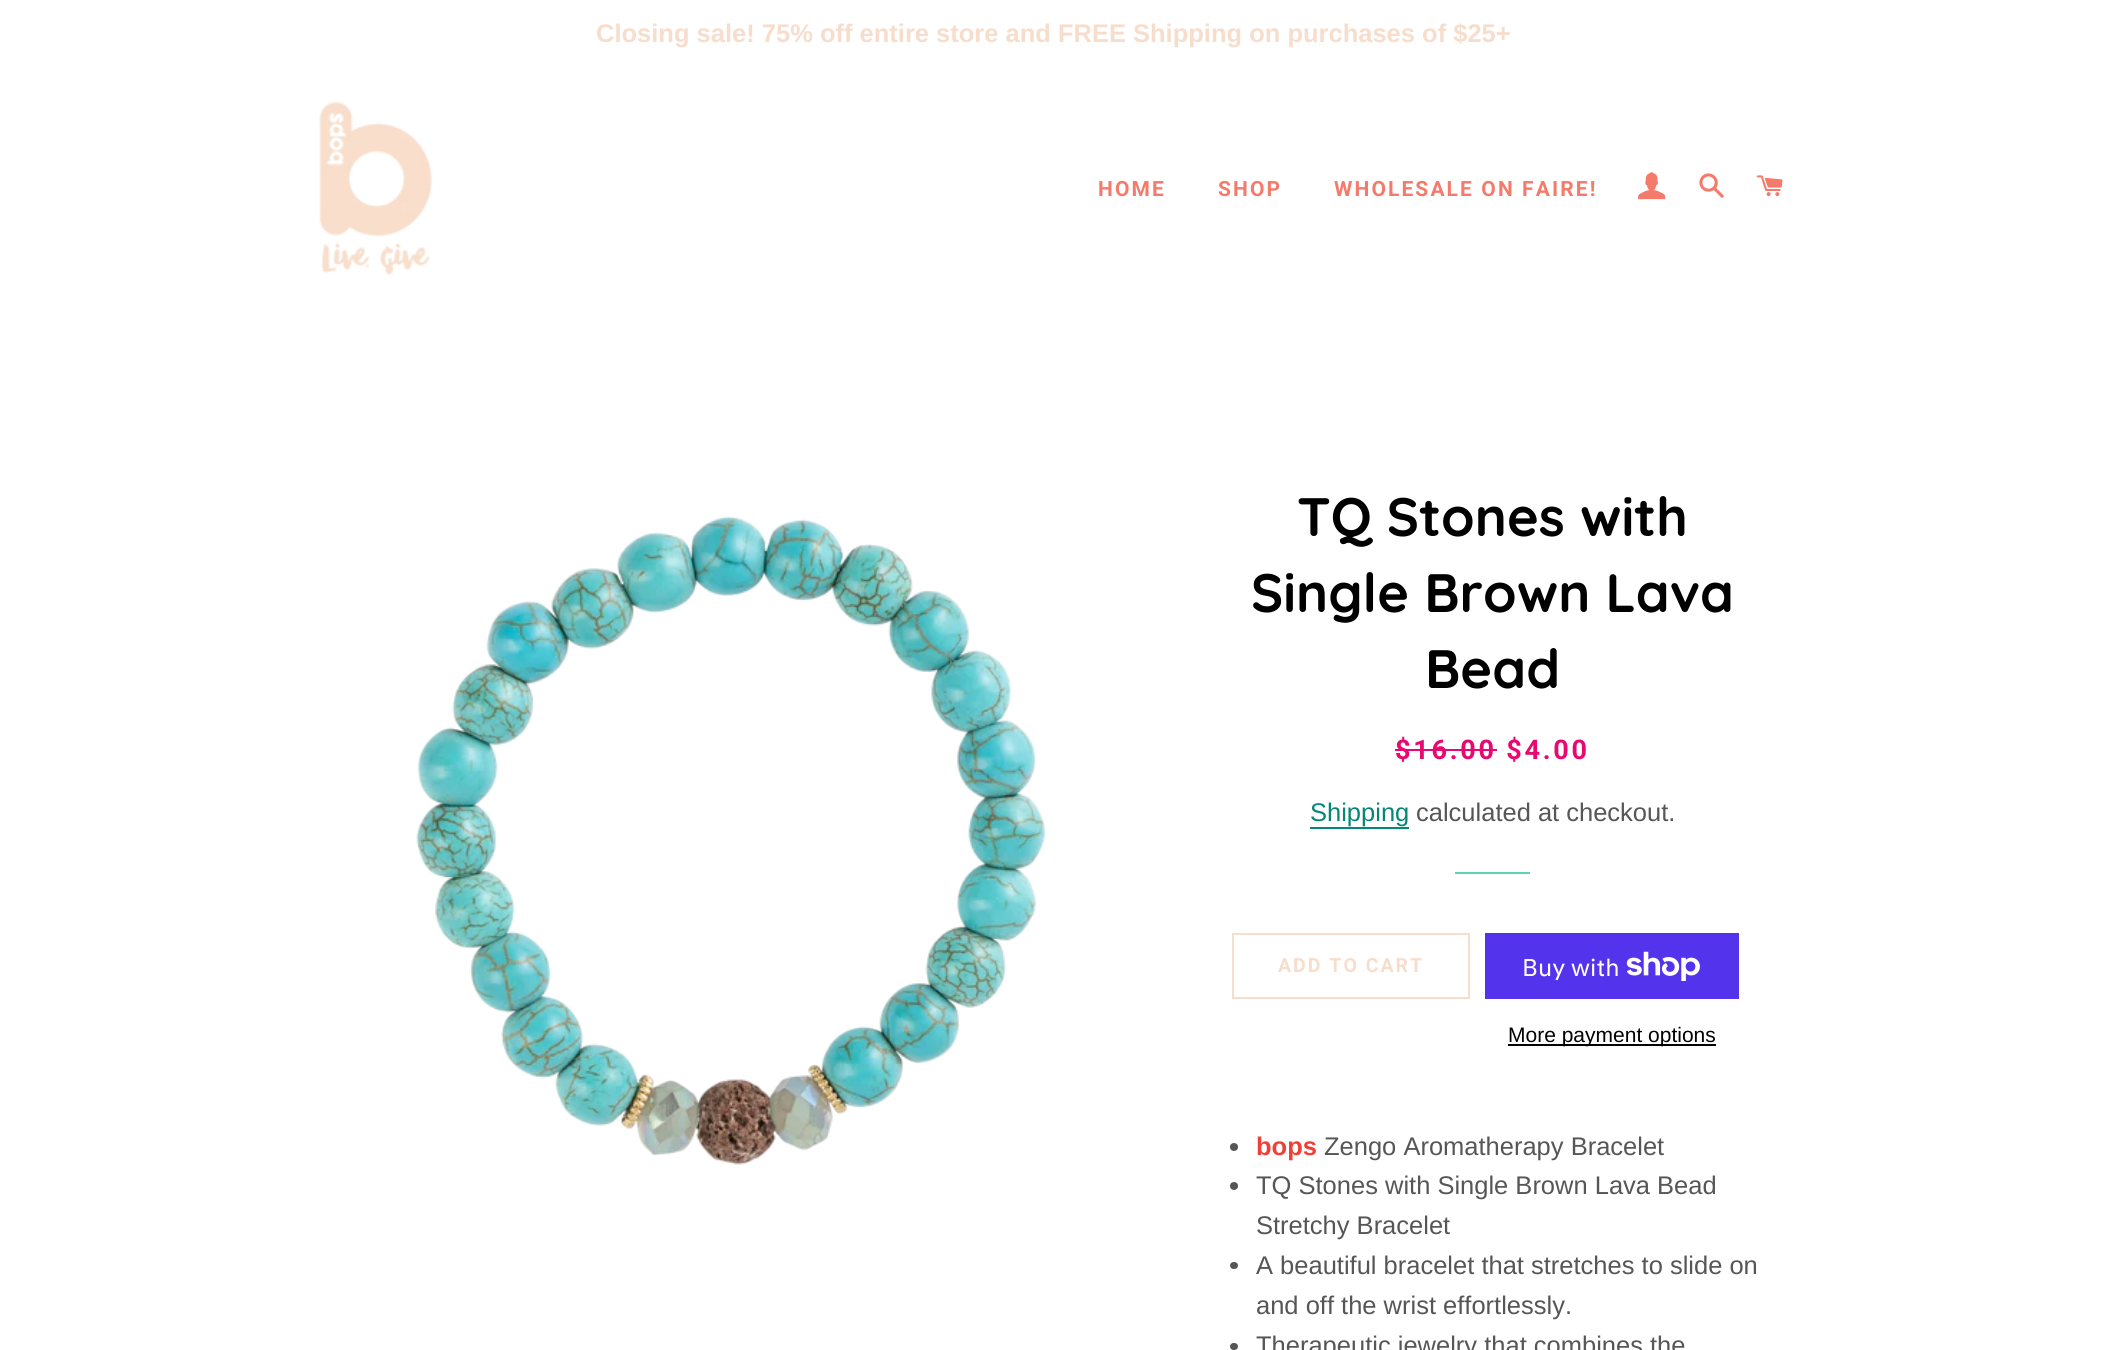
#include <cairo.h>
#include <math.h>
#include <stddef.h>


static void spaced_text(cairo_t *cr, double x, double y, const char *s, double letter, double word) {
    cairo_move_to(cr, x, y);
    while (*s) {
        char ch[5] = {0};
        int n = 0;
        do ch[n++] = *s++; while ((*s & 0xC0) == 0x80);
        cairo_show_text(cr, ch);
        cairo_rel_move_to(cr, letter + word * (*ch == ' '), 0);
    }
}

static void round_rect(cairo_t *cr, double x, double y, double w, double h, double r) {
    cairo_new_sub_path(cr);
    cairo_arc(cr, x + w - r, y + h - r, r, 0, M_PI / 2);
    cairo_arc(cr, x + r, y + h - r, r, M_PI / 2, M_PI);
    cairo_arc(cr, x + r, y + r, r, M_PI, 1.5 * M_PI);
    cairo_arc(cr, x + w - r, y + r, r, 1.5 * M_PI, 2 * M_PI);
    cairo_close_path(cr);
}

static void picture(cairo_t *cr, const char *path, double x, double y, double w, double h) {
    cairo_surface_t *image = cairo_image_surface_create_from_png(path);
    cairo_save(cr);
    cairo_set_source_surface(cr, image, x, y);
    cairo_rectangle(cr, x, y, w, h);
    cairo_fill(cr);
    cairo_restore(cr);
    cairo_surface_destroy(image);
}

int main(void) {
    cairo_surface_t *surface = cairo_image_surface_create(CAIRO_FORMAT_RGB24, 2107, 1350);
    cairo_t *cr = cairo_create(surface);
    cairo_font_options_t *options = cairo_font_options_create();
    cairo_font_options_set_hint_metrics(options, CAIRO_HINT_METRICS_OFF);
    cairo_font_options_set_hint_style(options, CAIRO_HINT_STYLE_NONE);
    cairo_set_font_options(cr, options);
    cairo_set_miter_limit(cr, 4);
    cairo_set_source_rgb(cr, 1, 1, 1);
    cairo_paint(cr);
    cairo_select_font_face(cr, "Liberation Sans", CAIRO_FONT_SLANT_NORMAL, CAIRO_FONT_WEIGHT_BOLD);
    cairo_set_font_size(cr, 25.5);
    cairo_set_source_rgb(cr, 0.965, 0.867, 0.8);
    cairo_move_to(cr, 596, 42);
    cairo_show_text(cr, "Closing sale! 75% off entire store and FREE Shipping on purchases of $25+");
    picture(cr, "img1.png", 319, 101, 114, 174);
    cairo_select_font_face(cr, "Roboto", CAIRO_FONT_SLANT_NORMAL, CAIRO_FONT_WEIGHT_BOLD);
    cairo_set_font_size(cr, 21);
    cairo_set_source_rgb(cr, 0.957, 0.482, 0.42);
    spaced_text(cr, 1098, 196, "HOME", 2.1, 0);
    spaced_text(cr, 1218, 196, "SHOP", 2.1, 0);
    spaced_text(cr, 1334, 196, "WHOLESALE ON FAIRE!", 2.1, 0);
    picture(cr, "img2.png", 1638, 172, 28, 28);
    picture(cr, "img3.png", 1699, 173, 25, 25);
    picture(cr, "img4.png", 1756, 175, 27, 22);
    picture(cr, "img5.png", 416, 516, 630, 649);
    cairo_select_font_face(cr, "Quicksand", CAIRO_FONT_SLANT_NORMAL, CAIRO_FONT_WEIGHT_BOLD);
    cairo_set_font_size(cr, 54);
    cairo_set_source_rgb(cr, 0, 0, 0);
    cairo_move_to(cr, 1297, 536);
    cairo_show_text(cr, "TQ Stones with");
    cairo_move_to(cr, 1251, 612);
    cairo_show_text(cr, "Single Brown Lava");
    cairo_move_to(cr, 1425, 688);
    cairo_show_text(cr, "Bead");
    cairo_select_font_face(cr, "Roboto", CAIRO_FONT_SLANT_NORMAL, CAIRO_FONT_WEIGHT_BOLD);
    cairo_set_font_size(cr, 27);
    cairo_set_source_rgb(cr, 0.91, 0.035, 0.439);
    spaced_text(cr, 1395, 759, "$16.00 $4.00", 2.75, 0);
    cairo_rectangle(cr, 1395, 749, 102, 2);
    cairo_fill(cr);
    cairo_select_font_face(cr, "Liberation Sans", CAIRO_FONT_SLANT_NORMAL, CAIRO_FONT_WEIGHT_NORMAL);
    cairo_set_font_size(cr, 25.5);
    cairo_set_source_rgb(cr, 0.02, 0.525, 0.467);
    cairo_move_to(cr, 1310, 821);
    cairo_show_text(cr, "Shipping");
    cairo_rectangle(cr, 1310, 827, 99, 2);
    cairo_fill(cr);
    cairo_set_source_rgb(cr, 0.337, 0.337, 0.337);
    cairo_move_to(cr, 1416, 821);
    cairo_show_text(cr, "calculated at checkout.");
    cairo_set_source_rgb(cr, 0.365, 0.824, 0.706);
    cairo_rectangle(cr, 1455, 872, 75, 2);
    cairo_fill(cr);
    cairo_rectangle(cr, 1233, 934, 236, 64);
    cairo_set_source_rgb(cr, 0.965, 0.867, 0.8);
    cairo_stroke(cr);
    cairo_select_font_face(cr, "Roboto", CAIRO_FONT_SLANT_NORMAL, CAIRO_FONT_WEIGHT_BOLD);
    cairo_set_font_size(cr, 19.5);
    spaced_text(cr, 1278, 972, "ADD TO CART", 2, 0);
    cairo_set_source_rgb(cr, 0.329, 0.2, 0.922);
    cairo_rectangle(cr, 1485, 933, 254, 66);
    cairo_fill(cr);
    cairo_select_font_face(cr, "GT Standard", CAIRO_FONT_SLANT_NORMAL, CAIRO_FONT_WEIGHT_NORMAL);
    cairo_set_font_size(cr, 24);
    cairo_set_source_rgb(cr, 1, 1, 1);
    cairo_move_to(cr, 1522, 976);
    cairo_show_text(cr, "Buy with");
    picture(cr, "img6.png", 1626, 951, 74, 30);
    cairo_set_source_rgb(cr, 0, 0, 0);
    cairo_rectangle(cr, 1508, 1044, 208, 2);
    cairo_fill(cr);
    cairo_select_font_face(cr, "Liberation Sans", CAIRO_FONT_SLANT_NORMAL, CAIRO_FONT_WEIGHT_NORMAL);
    cairo_set_font_size(cr, 21);
    cairo_move_to(cr, 1508, 1042);
    cairo_show_text(cr, "More payment options");
    cairo_set_source_rgb(cr, 0.337, 0.337, 0.337);
    cairo_new_path(cr);
    cairo_arc(cr, 1234, 1147, 4, 0, 2 * M_PI);
    cairo_fill(cr);
    cairo_select_font_face(cr, "Liberation Sans", CAIRO_FONT_SLANT_NORMAL, CAIRO_FONT_WEIGHT_BOLD);
    cairo_set_font_size(cr, 25.5);
    cairo_set_source_rgb(cr, 0.941, 0.247, 0.208);
    cairo_move_to(cr, 1256, 1155);
    cairo_show_text(cr, "bops");
    cairo_select_font_face(cr, "Liberation Sans", CAIRO_FONT_SLANT_NORMAL, CAIRO_FONT_WEIGHT_NORMAL);
    cairo_set_source_rgb(cr, 0.337, 0.337, 0.337);
    cairo_move_to(cr, 1324, 1155);
    cairo_show_text(cr, "Zengo Aromatherapy Bracelet");
    cairo_new_path(cr);
    cairo_arc(cr, 1234, 1186, 4, 0, 2 * M_PI);
    cairo_fill(cr);
    cairo_move_to(cr, 1256, 1194);
    cairo_show_text(cr, "TQ Stones with Single Brown Lava Bead");
    cairo_move_to(cr, 1256, 1234);
    cairo_show_text(cr, "Stretchy Bracelet");
    round_rect(cr, 1230, 1262, 8, 7, 3.5);
    cairo_fill(cr);
    cairo_move_to(cr, 1256, 1274);
    cairo_show_text(cr, "A beautiful bracelet that stretches to slide on");
    cairo_move_to(cr, 1256, 1314);
    cairo_show_text(cr, "and off the wrist effortlessly.");
    round_rect(cr, 1230, 1343, 8, 7, 3.5);
    cairo_fill(cr);
    cairo_move_to(cr, 1256, 1354);
    cairo_show_text(cr, "Therapeutic jewelry that combines the");
    cairo_surface_write_to_png(surface, "page.png");
    cairo_font_options_destroy(options);
    cairo_destroy(cr);
    cairo_surface_destroy(surface);
    return 0;
}
